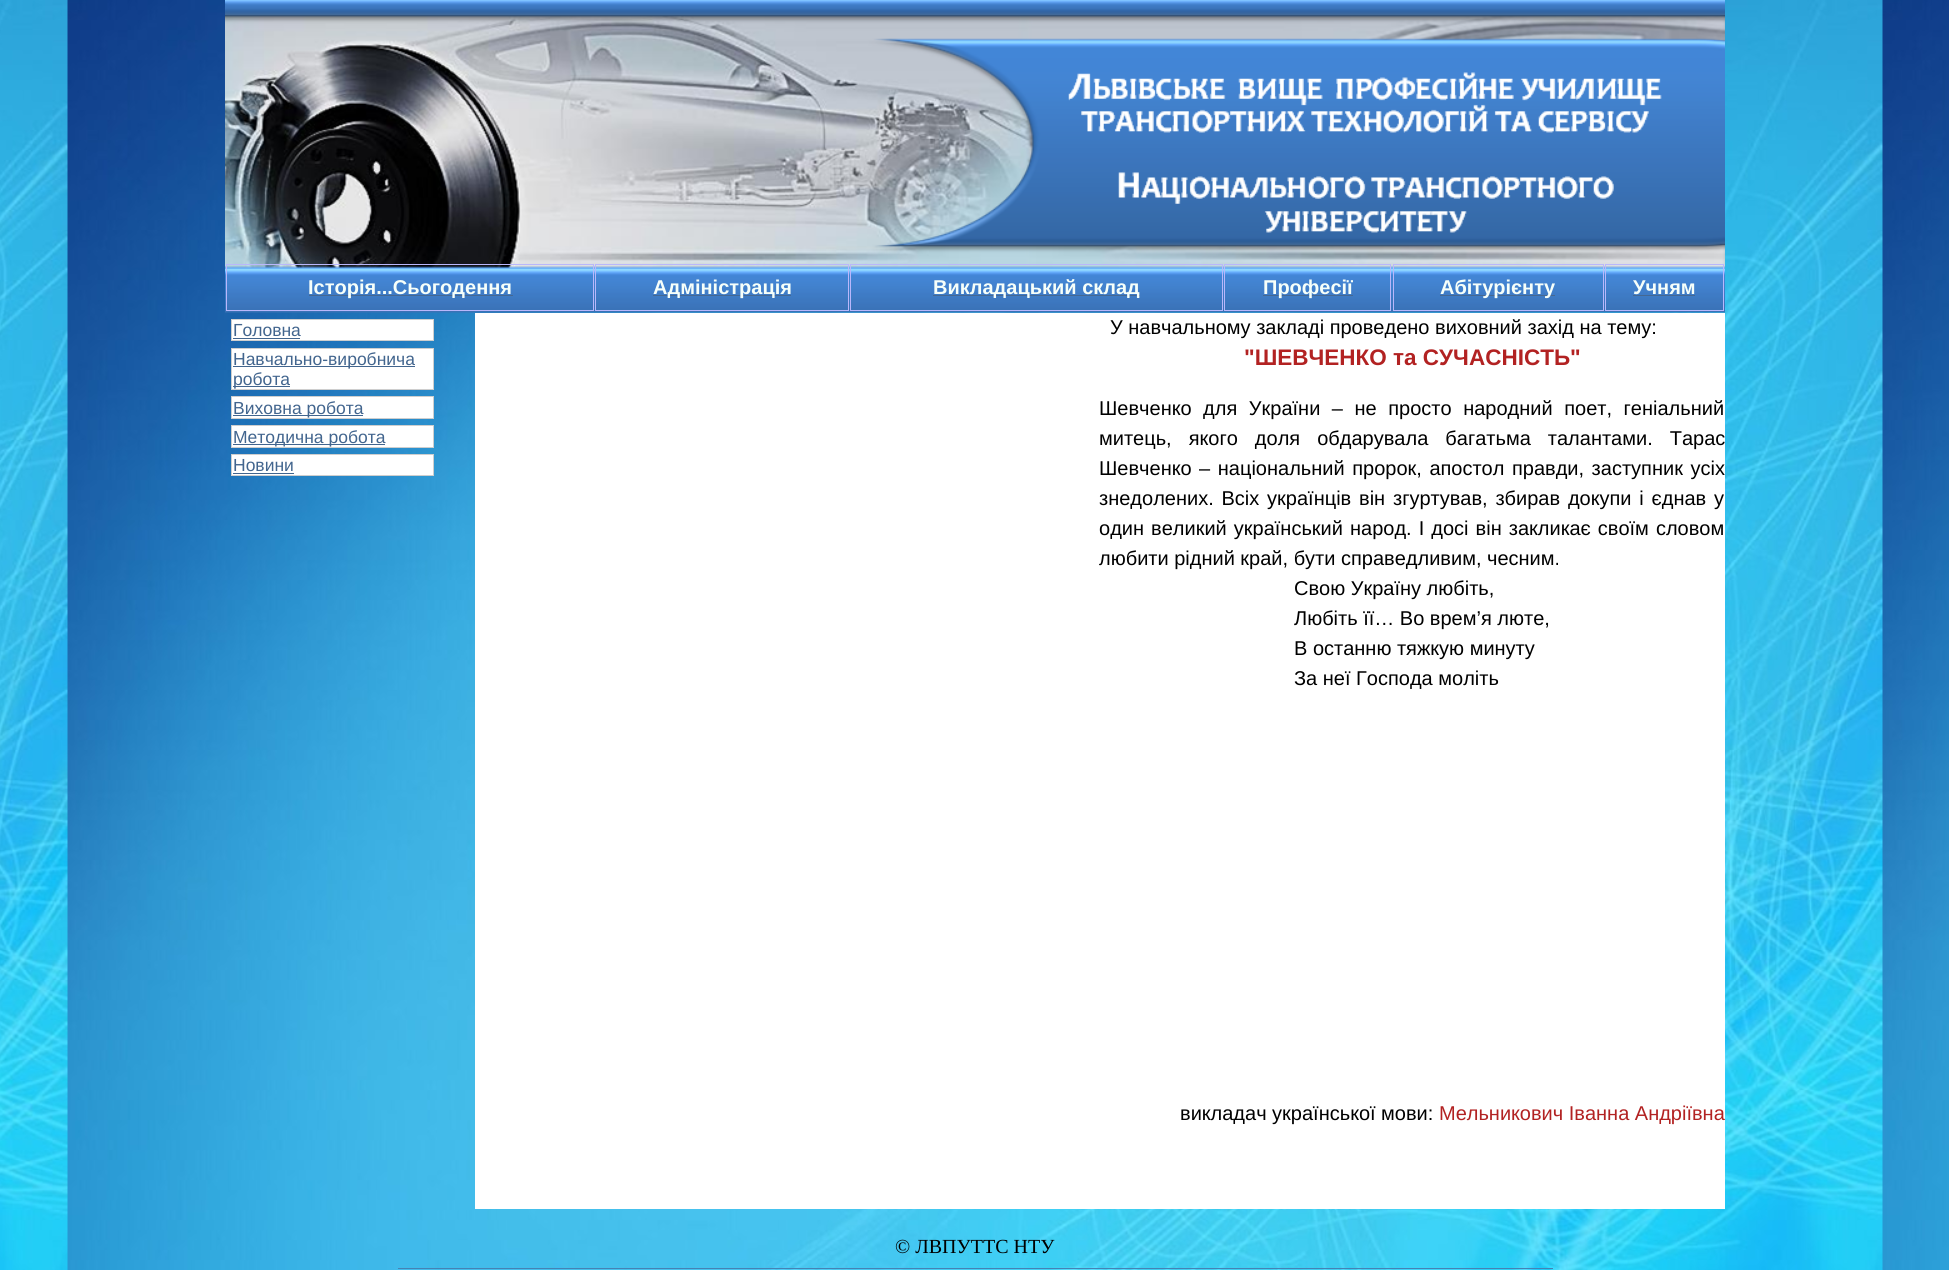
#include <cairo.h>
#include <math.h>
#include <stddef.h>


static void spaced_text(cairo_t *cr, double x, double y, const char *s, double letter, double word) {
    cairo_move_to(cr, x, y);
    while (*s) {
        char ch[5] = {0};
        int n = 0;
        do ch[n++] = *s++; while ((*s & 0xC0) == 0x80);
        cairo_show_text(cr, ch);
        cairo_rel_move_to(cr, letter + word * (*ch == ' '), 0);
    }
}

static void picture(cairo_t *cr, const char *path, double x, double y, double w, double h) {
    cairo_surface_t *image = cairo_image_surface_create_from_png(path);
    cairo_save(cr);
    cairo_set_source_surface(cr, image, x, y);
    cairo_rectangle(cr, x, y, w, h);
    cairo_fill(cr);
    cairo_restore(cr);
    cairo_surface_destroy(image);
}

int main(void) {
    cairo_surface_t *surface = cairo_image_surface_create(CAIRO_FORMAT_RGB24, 1949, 1270);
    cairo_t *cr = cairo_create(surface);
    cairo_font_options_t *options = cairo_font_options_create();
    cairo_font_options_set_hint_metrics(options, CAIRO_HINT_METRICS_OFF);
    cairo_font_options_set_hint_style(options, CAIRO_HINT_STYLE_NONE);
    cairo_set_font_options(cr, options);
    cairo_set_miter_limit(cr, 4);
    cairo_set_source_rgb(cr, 1, 1, 1);
    cairo_paint(cr);
    picture(cr, "img1.png", 0, 0, 1949, 1270);
    picture(cr, "img2.png", 225, 0, 1500, 313);
    cairo_rectangle(cr, 226.5, 264.5, 367, 46);
    cairo_set_source_rgb(cr, 0.725, 0.718, 0.984);
    cairo_set_line_width(cr, 1);
    cairo_stroke(cr);
    cairo_set_source_rgb(cr, 0.271, 0.408, 0.573);
    cairo_rectangle(cr, 309, 295, 204, 1);
    cairo_fill(cr);
    cairo_select_font_face(cr, "Liberation Sans", CAIRO_FONT_SLANT_NORMAL, CAIRO_FONT_WEIGHT_BOLD);
    cairo_set_font_size(cr, 20);
    cairo_set_source_rgb(cr, 0.961, 1, 0.98);
    cairo_move_to(cr, 308, 294);
    cairo_show_text(cr, "Історія...Сьогодення");
    cairo_rectangle(cr, 595.5, 264.5, 253, 46);
    cairo_set_source_rgb(cr, 0.725, 0.718, 0.984);
    cairo_stroke(cr);
    cairo_set_source_rgb(cr, 0.271, 0.408, 0.573);
    cairo_rectangle(cr, 653, 295, 138, 1);
    cairo_fill(cr);
    cairo_set_source_rgb(cr, 0.961, 1, 0.98);
    cairo_move_to(cr, 653, 294);
    cairo_show_text(cr, "Адміністрація");
    cairo_rectangle(cr, 850.5, 264.5, 372, 46);
    cairo_set_source_rgb(cr, 0.725, 0.718, 0.984);
    cairo_stroke(cr);
    cairo_set_source_rgb(cr, 0.271, 0.408, 0.573);
    cairo_rectangle(cr, 933, 295, 207, 1);
    cairo_fill(cr);
    cairo_set_source_rgb(cr, 0.961, 1, 0.98);
    cairo_move_to(cr, 933, 294);
    cairo_show_text(cr, "Викладацький склад");
    cairo_rectangle(cr, 1224.5, 264.5, 166, 46);
    cairo_set_source_rgb(cr, 0.725, 0.718, 0.984);
    cairo_stroke(cr);
    cairo_set_source_rgb(cr, 0.271, 0.408, 0.573);
    cairo_rectangle(cr, 1263, 295, 90, 1);
    cairo_fill(cr);
    cairo_set_source_rgb(cr, 0.961, 1, 0.98);
    cairo_move_to(cr, 1263, 294);
    cairo_show_text(cr, "Професії");
    cairo_rectangle(cr, 1393.5, 264.5, 210, 46);
    cairo_set_source_rgb(cr, 0.725, 0.718, 0.984);
    cairo_stroke(cr);
    cairo_set_source_rgb(cr, 0.271, 0.408, 0.573);
    cairo_rectangle(cr, 1440, 295, 115, 1);
    cairo_fill(cr);
    cairo_set_source_rgb(cr, 0.961, 1, 0.98);
    cairo_move_to(cr, 1440, 294);
    cairo_show_text(cr, "Абітурієнту");
    cairo_rectangle(cr, 1605.5, 264.5, 118, 46);
    cairo_set_source_rgb(cr, 0.725, 0.718, 0.984);
    cairo_stroke(cr);
    cairo_set_source_rgb(cr, 0.961, 1, 0.98);
    cairo_move_to(cr, 1633, 294);
    cairo_show_text(cr, "Учням");
    cairo_set_source_rgb(cr, 0.271, 0.408, 0.573);
    cairo_rectangle(cr, 1633, 295, 62, 1);
    cairo_fill(cr);
    cairo_set_source_rgb(cr, 1, 1, 1);
    cairo_rectangle(cr, 231.5, 319.5, 202, 21);
    cairo_fill_preserve(cr);
    cairo_set_source_rgb(cr, 0.808, 0.808, 0.808);
    cairo_stroke(cr);
    cairo_select_font_face(cr, "Liberation Sans", CAIRO_FONT_SLANT_NORMAL, CAIRO_FONT_WEIGHT_NORMAL);
    cairo_set_font_size(cr, 17.5);
    cairo_set_source_rgb(cr, 0.259, 0.396, 0.557);
    cairo_move_to(cr, 233, 336);
    cairo_show_text(cr, "Головна");
    cairo_rectangle(cr, 233, 338, 67, 1);
    cairo_fill(cr);
    cairo_set_source_rgb(cr, 1, 1, 1);
    cairo_rectangle(cr, 231.5, 348.5, 202, 41);
    cairo_fill_preserve(cr);
    cairo_set_source_rgb(cr, 0.808, 0.808, 0.808);
    cairo_stroke(cr);
    cairo_set_source_rgb(cr, 0.259, 0.396, 0.557);
    cairo_rectangle(cr, 233, 366, 182, 1);
    cairo_fill(cr);
    cairo_move_to(cr, 233, 365);
    cairo_show_text(cr, "Навчально-виробнича");
    cairo_rectangle(cr, 233, 386, 57, 1);
    cairo_fill(cr);
    cairo_move_to(cr, 233, 385);
    cairo_show_text(cr, "робота");
    cairo_set_source_rgb(cr, 1, 1, 1);
    cairo_rectangle(cr, 231.5, 396.5, 202, 22);
    cairo_fill_preserve(cr);
    cairo_set_source_rgb(cr, 0.808, 0.808, 0.808);
    cairo_stroke(cr);
    cairo_set_source_rgb(cr, 0.259, 0.396, 0.557);
    cairo_rectangle(cr, 233, 415, 130, 1);
    cairo_fill(cr);
    cairo_move_to(cr, 233, 414);
    cairo_show_text(cr, "Виховна робота");
    cairo_set_source_rgb(cr, 1, 1, 1);
    cairo_rectangle(cr, 231.5, 425.5, 202, 22);
    cairo_fill_preserve(cr);
    cairo_set_source_rgb(cr, 0.808, 0.808, 0.808);
    cairo_stroke(cr);
    cairo_set_source_rgb(cr, 0.259, 0.396, 0.557);
    cairo_rectangle(cr, 233, 444, 152, 1);
    cairo_fill(cr);
    cairo_move_to(cr, 233, 443);
    cairo_show_text(cr, "Методична робота");
    cairo_set_source_rgb(cr, 1, 1, 1);
    cairo_rectangle(cr, 231.5, 454.5, 202, 21);
    cairo_fill_preserve(cr);
    cairo_set_source_rgb(cr, 0.808, 0.808, 0.808);
    cairo_stroke(cr);
    cairo_set_source_rgb(cr, 0.259, 0.396, 0.557);
    cairo_move_to(cr, 233, 471);
    cairo_show_text(cr, "Новини");
    cairo_rectangle(cr, 233, 473, 61, 1);
    cairo_fill(cr);
    cairo_set_source_rgb(cr, 1, 1, 1);
    cairo_rectangle(cr, 475, 313, 1250, 896);
    cairo_fill(cr);
    cairo_set_font_size(cr, 20);
    cairo_set_source_rgb(cr, 0, 0, 0);
    cairo_move_to(cr, 1110, 334);
    cairo_show_text(cr, "У навчальному закладі проведено виховний захід на тему:");
    cairo_select_font_face(cr, "Liberation Sans", CAIRO_FONT_SLANT_NORMAL, CAIRO_FONT_WEIGHT_BOLD);
    cairo_set_font_size(cr, 22.5);
    cairo_set_source_rgb(cr, 0.698, 0.133, 0.133);
    cairo_move_to(cr, 1244, 365);
    cairo_show_text(cr, "\"ШЕВЧЕНКО та СУЧАСНІСТЬ\"");
    cairo_select_font_face(cr, "Liberation Sans", CAIRO_FONT_SLANT_NORMAL, CAIRO_FONT_WEIGHT_NORMAL);
    cairo_set_font_size(cr, 20);
    cairo_set_source_rgb(cr, 0, 0, 0);
    spaced_text(cr, 1099, 415, "Шевченко для України – не просто народний поет, геніальний", 0, 6);
    spaced_text(cr, 1099, 445, "митець, якого доля обдарувала багатьма талантами. Тарас", 0, 11.5);
    spaced_text(cr, 1099, 475, "Шевченко – національний пророк, апостол правди, заступник усіх", 0, 2);
    spaced_text(cr, 1099, 505, "знедолених. Всіх українців він згуртував, збирав докупи і єднав у", 0, 2.25);
    spaced_text(cr, 1099, 535, "один великий український народ. І досі він закликає своїм словом", 0, 1.5);
    cairo_move_to(cr, 1099, 565);
    cairo_show_text(cr, "любити рідний край, бути справедливим, чесним.");
    cairo_move_to(cr, 1294, 595);
    cairo_show_text(cr, "Свою Україну любіть,");
    cairo_move_to(cr, 1294, 625);
    cairo_show_text(cr, "Любіть її… Во врем’я люте,");
    cairo_move_to(cr, 1294, 655);
    cairo_show_text(cr, "В останню тяжкую минуту");
    cairo_move_to(cr, 1294, 685);
    cairo_show_text(cr, "За неї Господа моліть");
    cairo_move_to(cr, 1180, 1120);
    cairo_show_text(cr, "викладач української мови:");
    cairo_set_source_rgb(cr, 0.698, 0.133, 0.133);
    cairo_move_to(cr, 1439, 1120);
    cairo_show_text(cr, "Мельникович Іванна Андріївна");
    cairo_select_font_face(cr, "Liberation Serif", CAIRO_FONT_SLANT_NORMAL, CAIRO_FONT_WEIGHT_NORMAL);
    cairo_set_source_rgb(cr, 0, 0, 0);
    cairo_move_to(cr, 895, 1253);
    cairo_show_text(cr, "© ЛВПУТТС НТУ");
    cairo_set_source_rgb(cr, 0.275, 0.51, 0.706);
    cairo_rectangle(cr, 398, 1268, 1155, 1);
    cairo_fill(cr);
    cairo_surface_write_to_png(surface, "page.png");
    cairo_font_options_destroy(options);
    cairo_destroy(cr);
    cairo_surface_destroy(surface);
    return 0;
}
